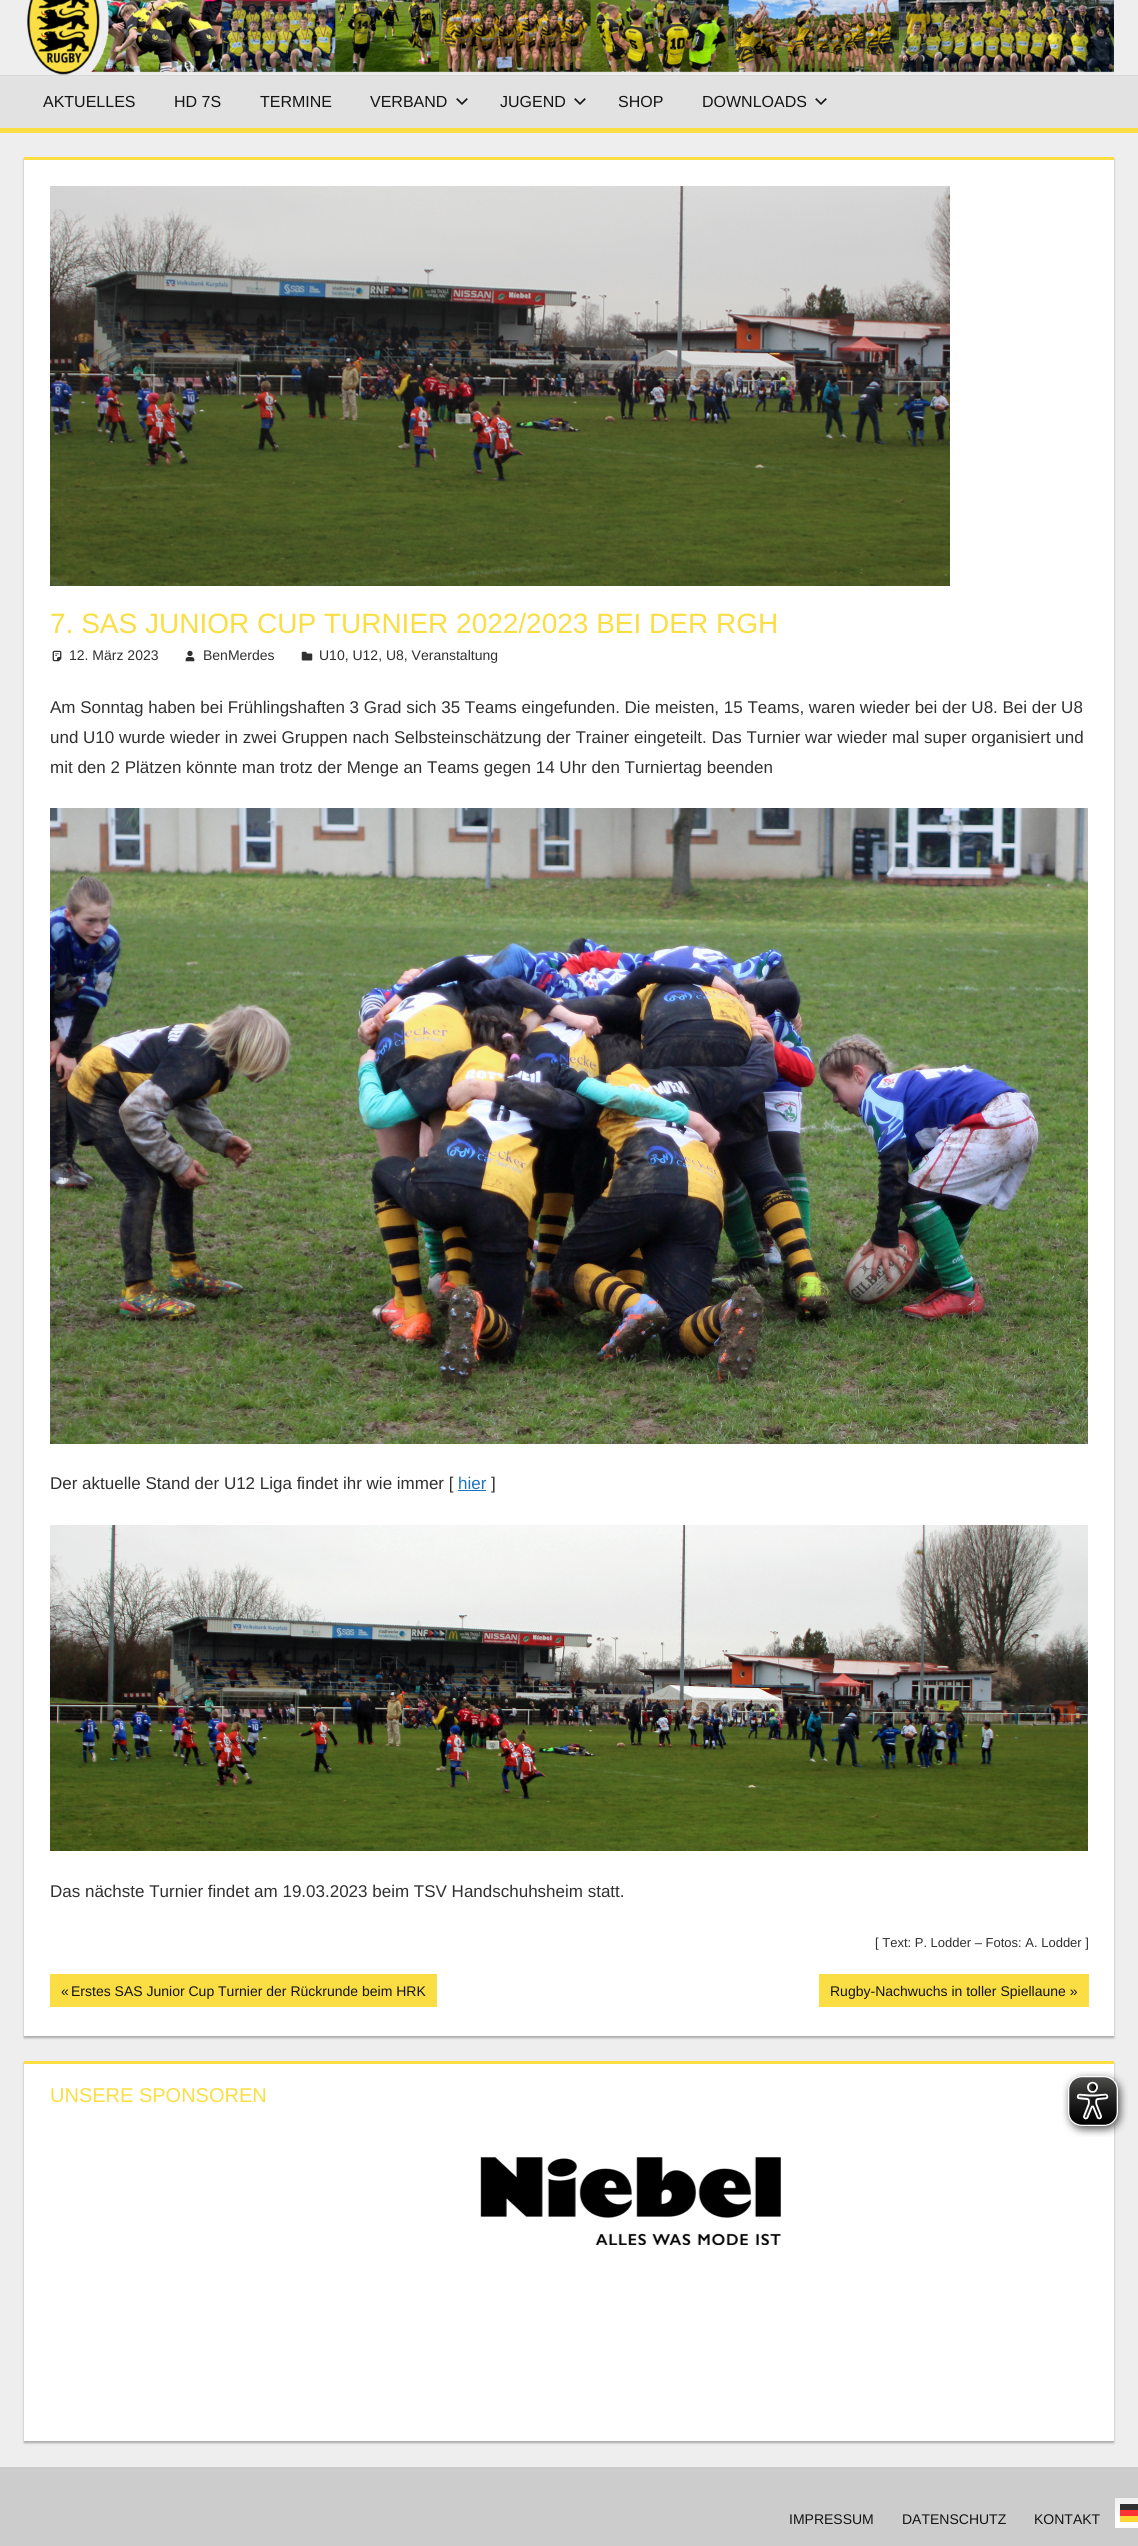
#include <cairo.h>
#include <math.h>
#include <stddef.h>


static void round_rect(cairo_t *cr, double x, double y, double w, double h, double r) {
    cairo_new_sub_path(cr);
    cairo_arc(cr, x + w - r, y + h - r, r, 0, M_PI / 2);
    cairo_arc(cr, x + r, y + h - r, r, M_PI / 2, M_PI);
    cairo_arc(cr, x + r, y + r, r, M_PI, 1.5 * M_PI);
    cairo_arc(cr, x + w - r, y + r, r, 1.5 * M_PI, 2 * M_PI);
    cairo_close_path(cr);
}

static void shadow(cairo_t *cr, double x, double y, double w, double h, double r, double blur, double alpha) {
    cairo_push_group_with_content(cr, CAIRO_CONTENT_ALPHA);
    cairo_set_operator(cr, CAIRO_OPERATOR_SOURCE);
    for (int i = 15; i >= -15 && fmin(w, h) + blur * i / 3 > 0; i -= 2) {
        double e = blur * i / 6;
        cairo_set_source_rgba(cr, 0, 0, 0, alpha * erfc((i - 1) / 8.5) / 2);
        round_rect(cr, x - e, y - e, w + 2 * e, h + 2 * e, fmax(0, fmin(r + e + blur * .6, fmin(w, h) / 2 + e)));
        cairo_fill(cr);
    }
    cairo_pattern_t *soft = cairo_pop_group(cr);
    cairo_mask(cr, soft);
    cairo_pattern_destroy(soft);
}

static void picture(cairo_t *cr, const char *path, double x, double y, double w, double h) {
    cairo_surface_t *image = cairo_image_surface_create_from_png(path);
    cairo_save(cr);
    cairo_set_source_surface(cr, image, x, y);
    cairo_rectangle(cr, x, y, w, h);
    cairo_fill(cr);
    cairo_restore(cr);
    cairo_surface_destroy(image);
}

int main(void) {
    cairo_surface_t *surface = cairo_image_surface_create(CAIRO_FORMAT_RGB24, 1138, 2546);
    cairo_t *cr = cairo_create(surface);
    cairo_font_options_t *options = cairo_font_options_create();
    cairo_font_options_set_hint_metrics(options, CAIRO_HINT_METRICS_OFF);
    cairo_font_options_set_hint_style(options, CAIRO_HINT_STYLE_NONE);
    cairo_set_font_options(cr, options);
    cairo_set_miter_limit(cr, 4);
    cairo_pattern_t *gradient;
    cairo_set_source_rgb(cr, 0.933, 0.933, 0.933);
    cairo_paint(cr);
    picture(cr, "img1.png", 27, 0, 1087, 75);
    cairo_set_source_rgb(cr, 0.886, 0.886, 0.886);
    cairo_rectangle(cr, 0, 76, 1138, 52);
    cairo_fill(cr);
    cairo_set_source_rgb(cr, 0.843, 0.843, 0.843);
    cairo_rectangle(cr, 0, 75, 1138, 1);
    cairo_fill(cr);
    cairo_set_source_rgb(cr, 0.98, 0.871, 0.263);
    cairo_rectangle(cr, 0, 128, 1138, 5);
    cairo_fill(cr);
    cairo_select_font_face(cr, "Liberation Sans", CAIRO_FONT_SLANT_NORMAL, CAIRO_FONT_WEIGHT_NORMAL);
    cairo_set_font_size(cr, 16);
    cairo_set_source_rgb(cr, 0.082, 0.082, 0.082);
    cairo_move_to(cr, 43, 107);
    cairo_show_text(cr, "AKTUELLES");
    cairo_move_to(cr, 174, 107);
    cairo_show_text(cr, "HD 7S");
    cairo_move_to(cr, 260, 107);
    cairo_show_text(cr, "TERMINE");
    cairo_move_to(cr, 370, 107);
    cairo_show_text(cr, "VERBAND");
    picture(cr, "img2.png", 456, 98, 12, 7);
    cairo_move_to(cr, 500, 107);
    cairo_show_text(cr, "JUGEND");
    picture(cr, "img2.png", 574, 98, 12, 7);
    cairo_move_to(cr, 618, 107);
    cairo_show_text(cr, "SHOP");
    cairo_move_to(cr, 702, 107);
    cairo_show_text(cr, "DOWNLOADS");
    picture(cr, "img2.png", 815, 98, 12, 7);
    cairo_set_source_rgb(cr, 0.667, 0.667, 0.667);
    shadow(cr, 24, 159, 1090, 1879, 0, 1, 1);
    cairo_set_source_rgb(cr, 1, 1, 1);
    cairo_rectangle(cr, 24, 160, 1090, 1876);
    cairo_fill(cr);
    cairo_set_source_rgb(cr, 0.98, 0.871, 0.263);
    cairo_rectangle(cr, 24, 157, 1090, 3);
    cairo_fill(cr);
    picture(cr, "img3.png", 50, 186, 900, 400);
    cairo_set_font_size(cr, 28);
    cairo_move_to(cr, 50, 633);
    cairo_show_text(cr, "7. SAS JUNIOR CUP TURNIER 2022/2023 BEI DER RGH");
    picture(cr, "img4.png", 52, 650, 10, 12);
    cairo_set_font_size(cr, 14);
    cairo_set_source_rgb(cr, 0.188, 0.188, 0.188);
    cairo_move_to(cr, 69, 660);
    cairo_show_text(cr, "12. März 2023");
    picture(cr, "img5.png", 185, 650, 10, 12);
    cairo_move_to(cr, 203, 660);
    cairo_show_text(cr, "BenMerdes");
    picture(cr, "img6.png", 301, 651, 12, 10);
    cairo_move_to(cr, 319, 660);
    cairo_show_text(cr, "U10, U12, U8, Veranstaltung");
    cairo_set_font_size(cr, 17);
    cairo_move_to(cr, 50, 713);
    cairo_show_text(cr, "Am Sonntag haben bei Frühlingshaften 3 Grad sich 35 Teams eingefunden. Die meisten, 15 Teams, waren wieder bei der U8. Bei der U8");
    cairo_move_to(cr, 50, 743);
    cairo_show_text(cr, "und U10 wurde wieder in zwei Gruppen nach Selbsteinschätzung der Trainer eingeteilt. Das Turnier war wieder mal super organisiert und");
    cairo_move_to(cr, 50, 773);
    cairo_show_text(cr, "mit den 2 Plätzen könnte man trotz der Menge an Teams gegen 14 Uhr den Turniertag beenden");
    picture(cr, "img7.png", 50, 808, 1038, 636);
    cairo_move_to(cr, 50, 1489);
    cairo_show_text(cr, "Der aktuelle Stand der U12 Liga findet ihr wie immer [");
    cairo_set_source_rgb(cr, 0.118, 0.451, 0.745);
    cairo_move_to(cr, 458, 1489);
    cairo_show_text(cr, "hier");
    cairo_rectangle(cr, 458, 1490, 28, 1);
    cairo_fill(cr);
    cairo_set_source_rgb(cr, 0.188, 0.188, 0.188);
    cairo_move_to(cr, 491, 1489);
    cairo_show_text(cr, "]");
    picture(cr, "img8.png", 50, 1525, 1038, 326);
    cairo_move_to(cr, 50, 1897);
    cairo_show_text(cr, "Das nächste Turnier findet am 19.03.2023 beim TSV Handschuhsheim statt.");
    cairo_set_font_size(cr, 13);
    cairo_move_to(cr, 875, 1947);
    cairo_show_text(cr, "[ Text: P. Lodder – Fotos: A. Lodder ]");
    cairo_set_source_rgb(cr, 0.98, 0.871, 0.263);
    cairo_rectangle(cr, 50, 1974, 387, 33);
    cairo_fill(cr);
    cairo_set_font_size(cr, 14);
    cairo_set_source_rgb(cr, 0.082, 0.082, 0.082);
    cairo_move_to(cr, 61, 1996);
    cairo_show_text(cr, "«");
    cairo_move_to(cr, 71, 1996);
    cairo_show_text(cr, "Erstes SAS Junior Cup Turnier der Rückrunde beim HRK");
    cairo_set_source_rgb(cr, 0.98, 0.871, 0.263);
    cairo_rectangle(cr, 819, 1974, 270, 33);
    cairo_fill(cr);
    cairo_set_source_rgb(cr, 0.082, 0.082, 0.082);
    cairo_move_to(cr, 830, 1996);
    cairo_show_text(cr, "Rugby-Nachwuchs in toller Spiellaune »");
    cairo_set_source_rgb(cr, 0.667, 0.667, 0.667);
    shadow(cr, 24, 2063, 1090, 380, 0, 1, 1);
    cairo_set_source_rgb(cr, 1, 1, 1);
    cairo_rectangle(cr, 24, 2064, 1090, 377);
    cairo_fill(cr);
    cairo_set_source_rgb(cr, 0.98, 0.871, 0.263);
    cairo_rectangle(cr, 24, 2061, 1090, 3);
    cairo_fill(cr);
    cairo_set_font_size(cr, 20);
    cairo_move_to(cr, 50, 2102);
    cairo_show_text(cr, "UNSERE SPONSOREN");
    picture(cr, "img9.png", 480, 2157, 301, 88);
    cairo_set_source_rgb(cr, 0.8, 0.8, 0.8);
    cairo_rectangle(cr, 0, 2467, 1138, 79);
    cairo_fill(cr);
    cairo_set_font_size(cr, 14);
    cairo_set_source_rgb(cr, 0.082, 0.082, 0.082);
    cairo_move_to(cr, 789, 2524);
    cairo_show_text(cr, "IMPRESSUM");
    cairo_move_to(cr, 902, 2524);
    cairo_show_text(cr, "DATENSCHUTZ");
    cairo_move_to(cr, 1034, 2524);
    cairo_show_text(cr, "KONTAKT");
    gradient = cairo_pattern_create_linear(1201, 2497, 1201, 2529);
    cairo_pattern_add_color_stop_rgba(gradient, 0, 0.937, 0.937, 0.937, 1);
    cairo_pattern_add_color_stop_rgba(gradient, 0.7, 1, 1, 1, 1);
    cairo_set_source(cr, gradient);
    cairo_pattern_destroy(gradient);
    cairo_rectangle(cr, 1115, 2498, 23, 30);
    cairo_fill(cr);
    gradient = cairo_pattern_create_linear(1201, 2497, 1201, 2529);
    cairo_pattern_add_color_stop_rgba(gradient, 0, 0.988, 0.188, 0.188, 1);
    cairo_pattern_add_color_stop_rgba(gradient, 0.7, 1, 0.2, 0.2, 1);
    cairo_set_source(cr, gradient);
    cairo_pattern_destroy(gradient);
    cairo_rectangle(cr, 1120, 2510, 18, 6);
    cairo_fill(cr);
    gradient = cairo_pattern_create_linear(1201, 2497, 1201, 2529);
    cairo_pattern_add_color_stop_rgba(gradient, 0, 0.188, 0.188, 0.188, 1);
    cairo_pattern_add_color_stop_rgba(gradient, 0.7, 0.2, 0.2, 0.2, 1);
    cairo_set_source(cr, gradient);
    cairo_pattern_destroy(gradient);
    cairo_rectangle(cr, 1120, 2504, 18, 6);
    cairo_fill(cr);
    cairo_set_source_rgb(cr, 1, 0.839, 0.2);
    cairo_rectangle(cr, 1120, 2516, 18, 6);
    cairo_fill(cr);
    picture(cr, "img10.png", 1062, 2071, 66, 66);
    cairo_surface_write_to_png(surface, "page.png");
    cairo_font_options_destroy(options);
    cairo_destroy(cr);
    cairo_surface_destroy(surface);
    return 0;
}
